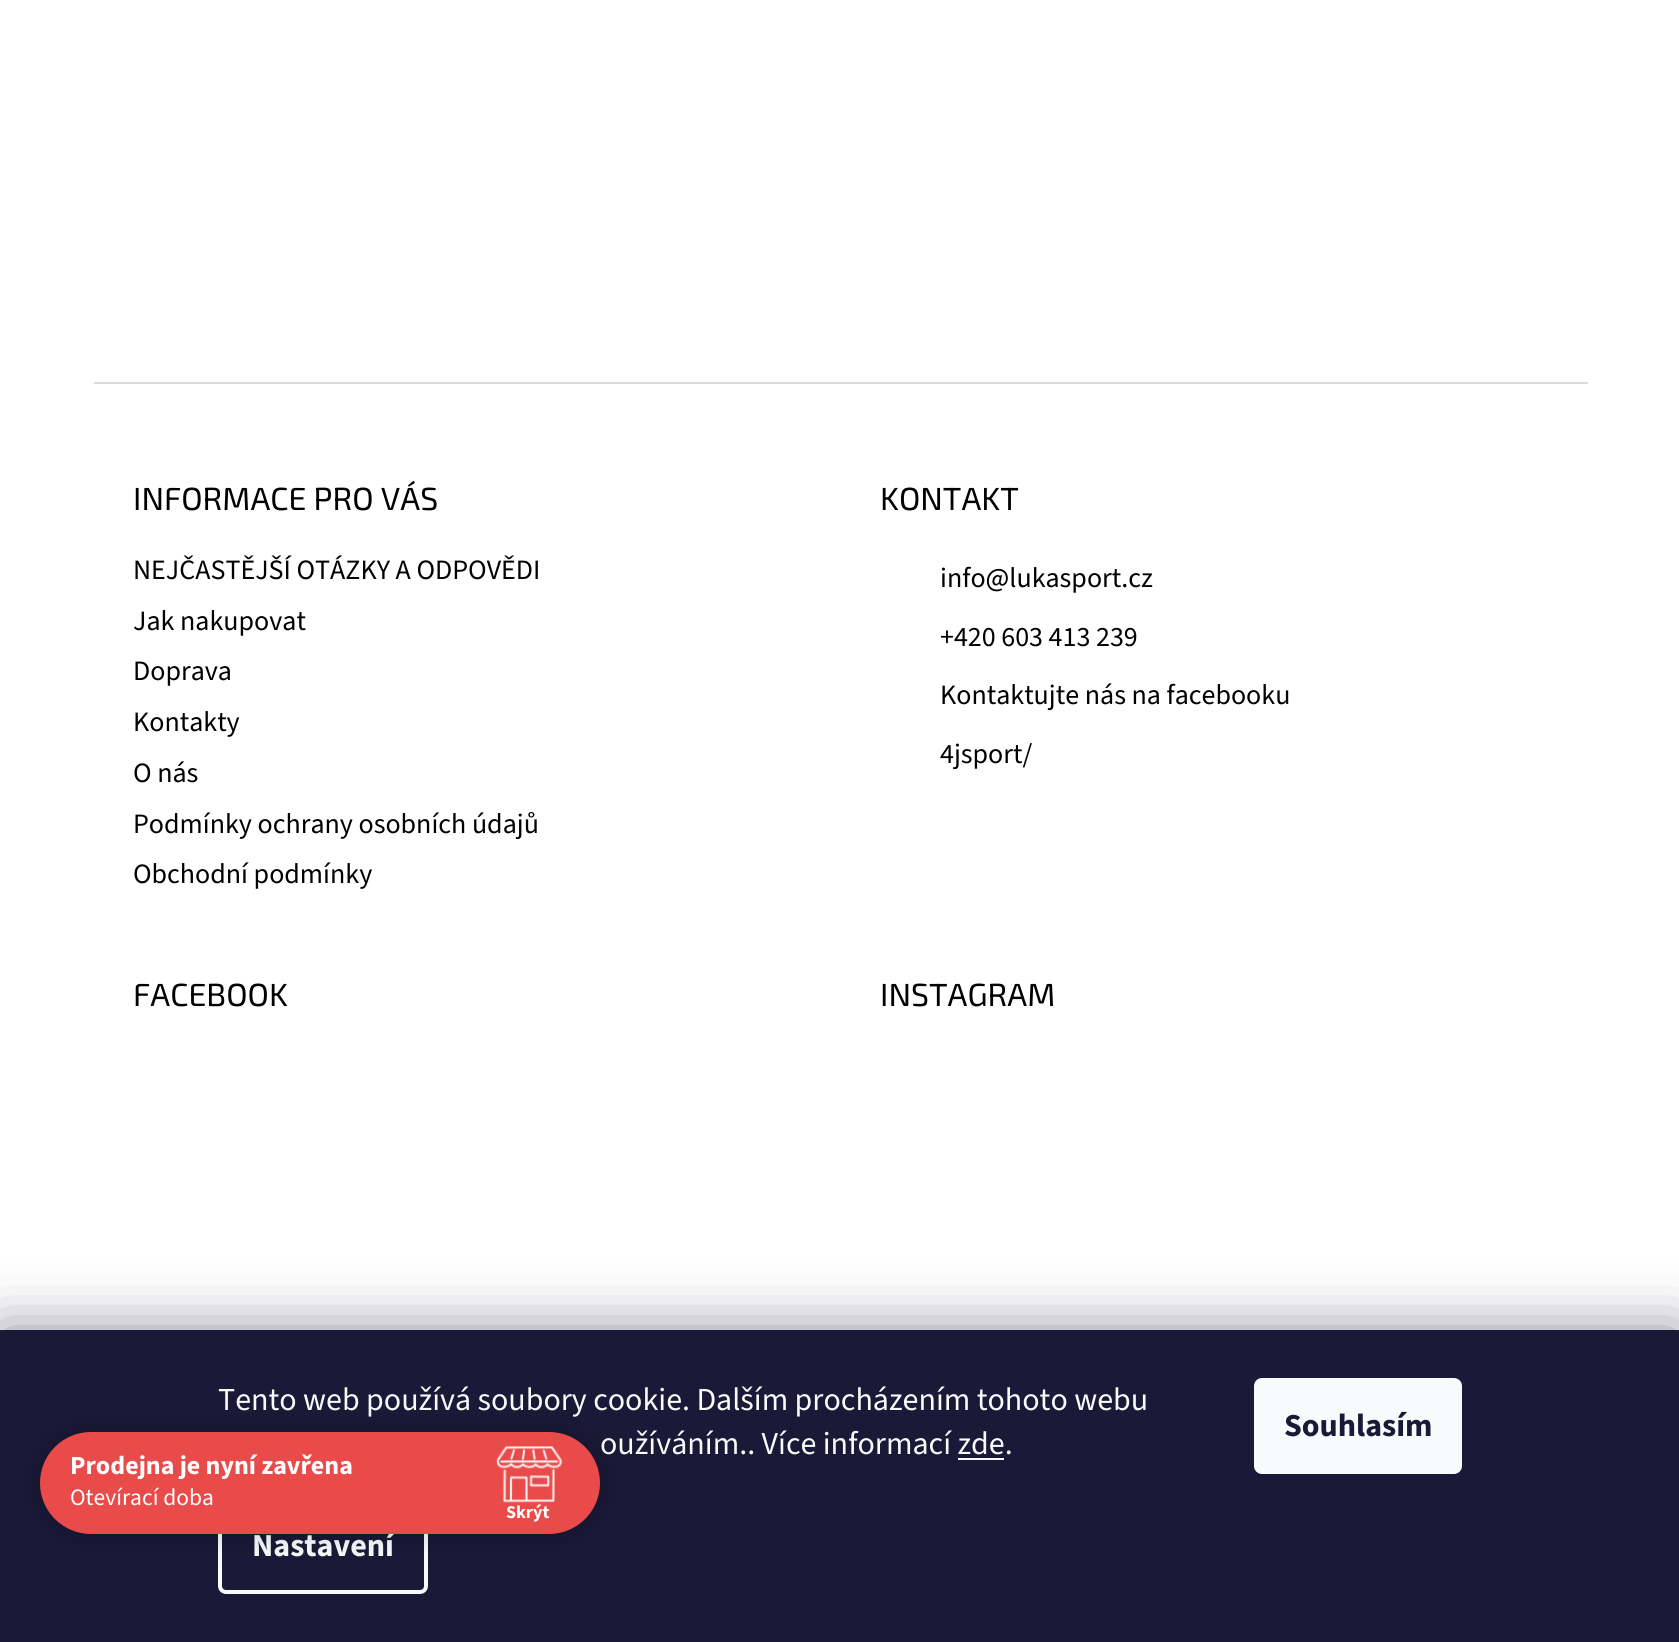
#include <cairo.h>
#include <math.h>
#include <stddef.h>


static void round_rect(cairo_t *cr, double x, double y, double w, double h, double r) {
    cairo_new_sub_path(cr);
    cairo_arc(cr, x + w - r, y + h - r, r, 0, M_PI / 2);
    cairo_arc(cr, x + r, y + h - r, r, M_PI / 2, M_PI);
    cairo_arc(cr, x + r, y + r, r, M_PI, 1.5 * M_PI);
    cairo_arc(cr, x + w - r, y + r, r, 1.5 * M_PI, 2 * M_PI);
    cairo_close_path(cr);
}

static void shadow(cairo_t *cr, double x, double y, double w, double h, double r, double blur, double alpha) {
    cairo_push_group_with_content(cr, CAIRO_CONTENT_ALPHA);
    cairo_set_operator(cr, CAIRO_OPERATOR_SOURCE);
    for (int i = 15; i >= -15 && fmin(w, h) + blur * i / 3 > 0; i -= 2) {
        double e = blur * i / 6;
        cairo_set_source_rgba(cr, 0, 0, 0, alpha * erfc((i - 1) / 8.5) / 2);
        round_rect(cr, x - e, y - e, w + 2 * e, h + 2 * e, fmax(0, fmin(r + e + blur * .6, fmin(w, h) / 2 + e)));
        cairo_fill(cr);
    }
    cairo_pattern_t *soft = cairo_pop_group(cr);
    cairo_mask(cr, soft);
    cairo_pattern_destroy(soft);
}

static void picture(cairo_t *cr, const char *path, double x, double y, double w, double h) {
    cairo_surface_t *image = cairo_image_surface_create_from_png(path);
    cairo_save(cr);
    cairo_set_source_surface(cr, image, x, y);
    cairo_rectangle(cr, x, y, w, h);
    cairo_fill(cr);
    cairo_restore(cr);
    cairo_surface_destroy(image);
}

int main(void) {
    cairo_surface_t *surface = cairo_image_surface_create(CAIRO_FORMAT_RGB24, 1679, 1642);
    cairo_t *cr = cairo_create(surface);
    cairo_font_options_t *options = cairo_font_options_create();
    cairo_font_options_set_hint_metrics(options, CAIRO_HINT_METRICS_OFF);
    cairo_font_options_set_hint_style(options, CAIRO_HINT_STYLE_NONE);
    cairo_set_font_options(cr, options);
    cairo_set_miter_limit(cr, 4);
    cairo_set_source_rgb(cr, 1, 1, 1);
    cairo_paint(cr);
    cairo_set_source_rgb(cr, 0.855, 0.855, 0.855);
    cairo_rectangle(cr, 94, 382, 1494, 2);
    cairo_fill(cr);
    cairo_select_font_face(cr, "Exo 2", CAIRO_FONT_SLANT_NORMAL, CAIRO_FONT_WEIGHT_NORMAL);
    cairo_set_font_size(cr, 32);
    cairo_set_source_rgb(cr, 0, 0, 0);
    cairo_move_to(cr, 133, 510);
    cairo_show_text(cr, "INFORMACE PRO VÁS");
    cairo_select_font_face(cr, "Source Sans 3", CAIRO_FONT_SLANT_NORMAL, CAIRO_FONT_WEIGHT_NORMAL);
    cairo_set_font_size(cr, 28);
    cairo_move_to(cr, 133, 579);
    cairo_show_text(cr, "NEJČASTĚJŠÍ OTÁZKY A ODPOVĚDI");
    cairo_move_to(cr, 133, 630);
    cairo_show_text(cr, "Jak nakupovat");
    cairo_move_to(cr, 133, 680);
    cairo_show_text(cr, "Doprava");
    cairo_move_to(cr, 133, 731);
    cairo_show_text(cr, "Kontakty");
    cairo_move_to(cr, 133, 782);
    cairo_show_text(cr, "O nás");
    cairo_move_to(cr, 133, 833);
    cairo_show_text(cr, "Podmínky ochrany osobních údajů");
    cairo_move_to(cr, 133, 883);
    cairo_show_text(cr, "Obchodní podmínky");
    cairo_select_font_face(cr, "Exo 2", CAIRO_FONT_SLANT_NORMAL, CAIRO_FONT_WEIGHT_NORMAL);
    cairo_set_font_size(cr, 32);
    cairo_move_to(cr, 880, 510);
    cairo_show_text(cr, "KONTAKT");
    cairo_select_font_face(cr, "Source Sans 3", CAIRO_FONT_SLANT_NORMAL, CAIRO_FONT_WEIGHT_NORMAL);
    cairo_set_font_size(cr, 28);
    cairo_move_to(cr, 940, 587);
    cairo_show_text(cr, "info@lukasport.cz");
    cairo_move_to(cr, 940, 646);
    cairo_show_text(cr, "+420 603 413 239");
    cairo_move_to(cr, 940, 704);
    cairo_show_text(cr, "Kontaktujte nás na facebooku");
    cairo_move_to(cr, 940, 763);
    cairo_show_text(cr, "4jsport/");
    cairo_select_font_face(cr, "Exo 2", CAIRO_FONT_SLANT_NORMAL, CAIRO_FONT_WEIGHT_NORMAL);
    cairo_set_font_size(cr, 32);
    cairo_move_to(cr, 133, 1006);
    cairo_show_text(cr, "FACEBOOK");
    cairo_move_to(cr, 880, 1006);
    cairo_show_text(cr, "INSTAGRAM");
    cairo_set_source_rgb(cr, 0.106, 0.098, 0.224);
    shadow(cr, 0, 1330, 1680, 312, 0, 30, 0.5);
    cairo_set_source_rgb(cr, 0.102, 0.098, 0.216);
    cairo_rectangle(cr, 0, 1330, 1679, 312);
    cairo_fill(cr);
    cairo_select_font_face(cr, "Source Sans 3", CAIRO_FONT_SLANT_NORMAL, CAIRO_FONT_WEIGHT_NORMAL);
    cairo_set_source_rgb(cr, 0.973, 0.98, 0.984);
    cairo_move_to(cr, 218, 1410);
    cairo_show_text(cr, "Tento web používá soubory cookie. Dalším procházením tohoto webu");
    cairo_move_to(cr, 600, 1454);
    cairo_show_text(cr, "oužíváním.. Více informací zde.");
    cairo_rectangle(cr, 958, 1458, 46, 2);
    cairo_fill(cr);
    round_rect(cr, 220, 1500, 206, 92, 6);
    cairo_set_line_width(cr, 4);
    cairo_stroke(cr);
    cairo_select_font_face(cr, "Source Sans 3", CAIRO_FONT_SLANT_NORMAL, CAIRO_FONT_WEIGHT_BOLD);
    cairo_move_to(cr, 252, 1556);
    cairo_show_text(cr, "Nastavení");
    round_rect(cr, 1254, 1378, 208, 96, 8);
    cairo_fill(cr);
    cairo_set_source_rgb(cr, 0.102, 0.098, 0.216);
    cairo_move_to(cr, 1284, 1436);
    cairo_show_text(cr, "Souhlasím");
    cairo_set_source_rgb(cr, 0, 0, 0);
    shadow(cr, 40, 1432, 560, 102, 51, 15, 0.2);
    cairo_set_source_rgb(cr, 0.914, 0.294, 0.294);
    round_rect(cr, 40, 1432, 560, 102, 51);
    cairo_fill(cr);
    cairo_set_font_size(cr, 26);
    cairo_set_source_rgb(cr, 1, 1, 1);
    cairo_move_to(cr, 70, 1474);
    cairo_show_text(cr, "Prodejna je nyní zavřena");
    cairo_select_font_face(cr, "Source Sans 3", CAIRO_FONT_SLANT_NORMAL, CAIRO_FONT_WEIGHT_NORMAL);
    cairo_set_font_size(cr, 23.5);
    cairo_move_to(cr, 70, 1505);
    cairo_show_text(cr, "Otevírací doba");
    picture(cr, "img1.png", 496, 1446, 67, 57);
    cairo_select_font_face(cr, "Source Sans 3", CAIRO_FONT_SLANT_NORMAL, CAIRO_FONT_WEIGHT_BOLD);
    cairo_set_font_size(cr, 18);
    cairo_move_to(cr, 506, 1518);
    cairo_show_text(cr, "Skrýt");
    cairo_surface_write_to_png(surface, "page.png");
    cairo_font_options_destroy(options);
    cairo_destroy(cr);
    cairo_surface_destroy(surface);
    return 0;
}
